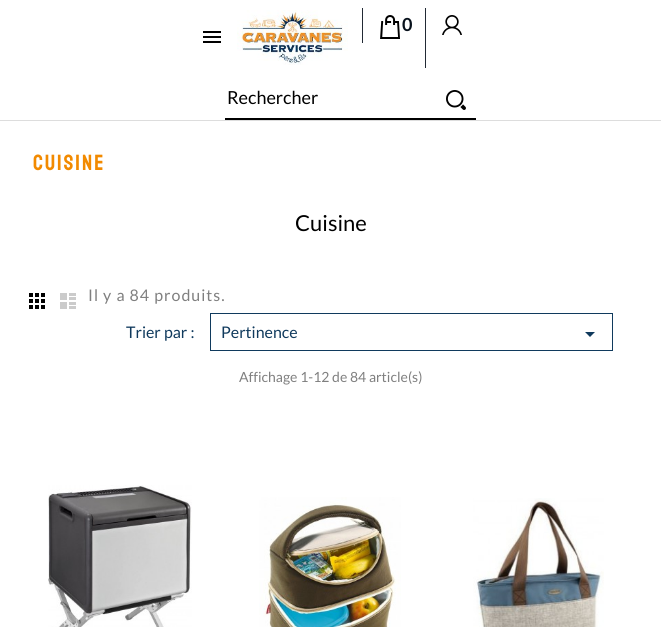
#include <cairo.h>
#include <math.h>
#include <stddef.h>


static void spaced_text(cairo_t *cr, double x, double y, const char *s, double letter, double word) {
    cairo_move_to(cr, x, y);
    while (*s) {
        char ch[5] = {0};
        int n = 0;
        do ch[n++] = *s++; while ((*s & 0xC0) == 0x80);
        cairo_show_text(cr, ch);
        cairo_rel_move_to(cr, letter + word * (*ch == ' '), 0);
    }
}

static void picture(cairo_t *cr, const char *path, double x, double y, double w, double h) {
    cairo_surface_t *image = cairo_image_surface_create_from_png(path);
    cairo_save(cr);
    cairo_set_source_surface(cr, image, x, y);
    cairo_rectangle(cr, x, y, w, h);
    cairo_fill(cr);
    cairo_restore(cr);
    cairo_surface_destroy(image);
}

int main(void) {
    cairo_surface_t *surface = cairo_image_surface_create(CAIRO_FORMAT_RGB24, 661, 627);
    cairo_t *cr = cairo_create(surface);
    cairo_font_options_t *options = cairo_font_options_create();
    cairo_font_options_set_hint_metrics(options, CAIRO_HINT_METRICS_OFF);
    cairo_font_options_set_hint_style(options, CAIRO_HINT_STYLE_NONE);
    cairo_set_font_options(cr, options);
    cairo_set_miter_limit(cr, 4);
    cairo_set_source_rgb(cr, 1, 1, 1);
    cairo_paint(cr);
    cairo_set_source_rgb(cr, 0.867, 0.867, 0.867);
    cairo_rectangle(cr, 0, 120, 661, 1);
    cairo_fill(cr);
    picture(cr, "img1.png", 237, 10, 111, 55);
    cairo_set_source_rgb(cr, 0.133, 0.165, 0.208);
    cairo_rectangle(cr, 362, 8, 1, 35);
    cairo_fill(cr);
    picture(cr, "img2.png", 380, 15, 20, 24);
    cairo_select_font_face(cr, "Lato", CAIRO_FONT_SLANT_NORMAL, CAIRO_FONT_WEIGHT_BOLD);
    cairo_set_font_size(cr, 18);
    cairo_set_source_rgb(cr, 0.035, 0.067, 0.11);
    cairo_move_to(cr, 402, 31);
    cairo_show_text(cr, "0");
    cairo_set_source_rgb(cr, 0.133, 0.165, 0.208);
    cairo_rectangle(cr, 425, 8, 1, 60);
    cairo_fill(cr);
    picture(cr, "img3.png", 442, 15, 20, 20);
    picture(cr, "img4.png", 203, 31, 18, 12);
    cairo_set_source_rgb(cr, 0, 0, 0);
    cairo_rectangle(cr, 225, 118, 251, 2);
    cairo_fill(cr);
    cairo_select_font_face(cr, "Lato", CAIRO_FONT_SLANT_NORMAL, CAIRO_FONT_WEIGHT_NORMAL);
    cairo_move_to(cr, 227, 104);
    cairo_show_text(cr, "Rechercher");
    picture(cr, "img5.png", 446, 90, 20, 20);
    cairo_select_font_face(cr, "Staatliches", CAIRO_FONT_SLANT_NORMAL, CAIRO_FONT_WEIGHT_NORMAL);
    cairo_set_font_size(cr, 22);
    cairo_set_source_rgb(cr, 0.949, 0.541, 0);
    spaced_text(cr, 33, 170, "CUISINE", 2, 0);
    cairo_select_font_face(cr, "Lato", CAIRO_FONT_SLANT_NORMAL, CAIRO_FONT_WEIGHT_NORMAL);
    cairo_set_source_rgb(cr, 0, 0, 0);
    cairo_move_to(cr, 295, 231);
    cairo_show_text(cr, "Cuisine");
    picture(cr, "img6.png", 29, 293, 16, 16);
    picture(cr, "img7.png", 60, 293, 16, 16);
    cairo_set_font_size(cr, 16);
    cairo_set_source_rgb(cr, 0.498, 0.498, 0.498);
    spaced_text(cr, 88, 301, "Il y a 84 produits.", 1, 0);
    cairo_set_source_rgb(cr, 0.063, 0.227, 0.365);
    cairo_move_to(cr, 126, 338);
    cairo_show_text(cr, "Trier par :");
    cairo_rectangle(cr, 210.5, 313.5, 402, 37);
    cairo_set_line_width(cr, 1);
    cairo_stroke(cr);
    cairo_move_to(cr, 221, 338);
    cairo_show_text(cr, "Pertinence");
    cairo_new_path(cr);
    cairo_move_to(cr, 585, 332);
    cairo_line_to(cr, 595, 332);
    cairo_line_to(cr, 590, 337);
    cairo_close_path(cr);
    cairo_fill(cr);
    cairo_set_font_size(cr, 14);
    cairo_set_source_rgb(cr, 0.498, 0.498, 0.498);
    cairo_move_to(cr, 239, 382);
    cairo_show_text(cr, "Affichage 1-12 de 84 article(s)");
    picture(cr, "img8.png", 48, 485, 144, 142);
    picture(cr, "img9.png", 259, 497, 142, 130);
    picture(cr, "img10.png", 473, 498, 131, 129);
    cairo_surface_write_to_png(surface, "page.png");
    cairo_font_options_destroy(options);
    cairo_destroy(cr);
    cairo_surface_destroy(surface);
    return 0;
}
